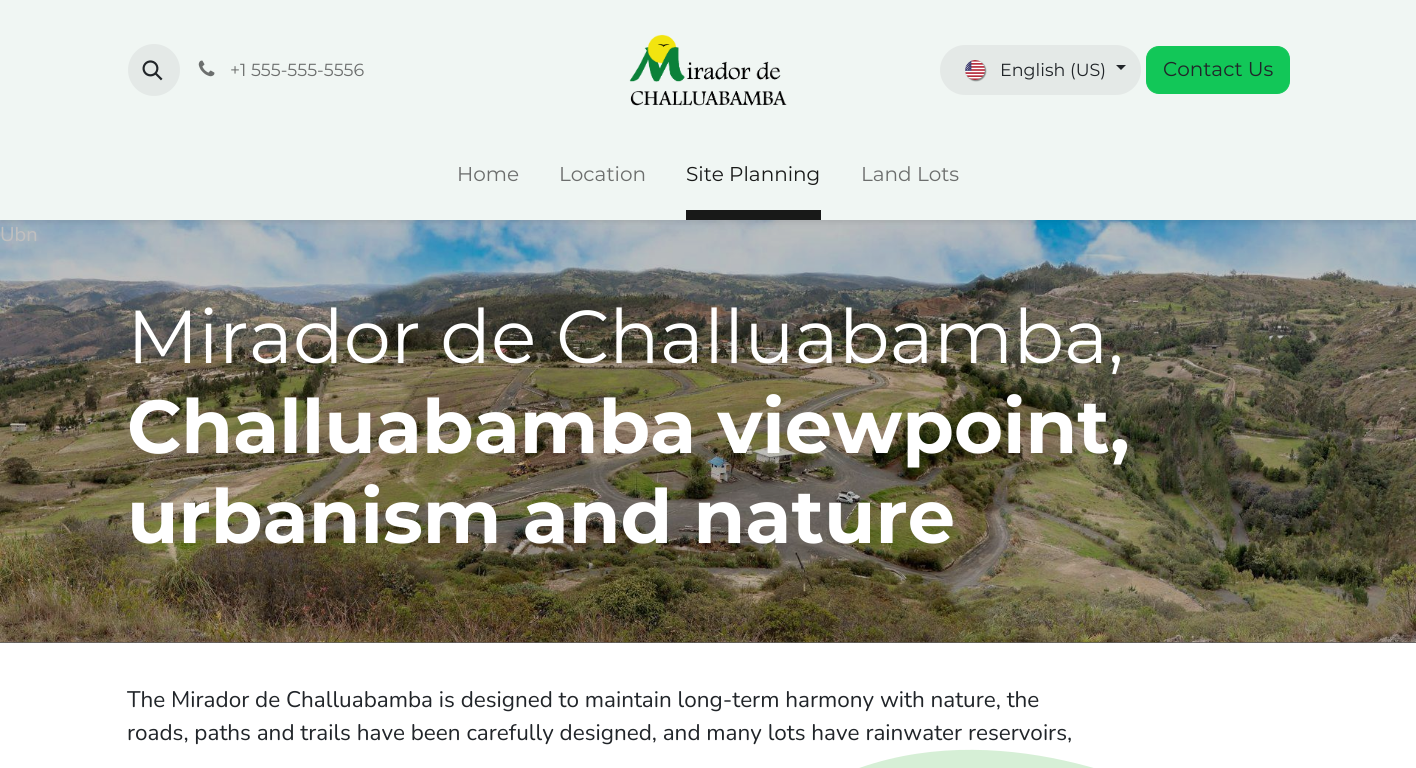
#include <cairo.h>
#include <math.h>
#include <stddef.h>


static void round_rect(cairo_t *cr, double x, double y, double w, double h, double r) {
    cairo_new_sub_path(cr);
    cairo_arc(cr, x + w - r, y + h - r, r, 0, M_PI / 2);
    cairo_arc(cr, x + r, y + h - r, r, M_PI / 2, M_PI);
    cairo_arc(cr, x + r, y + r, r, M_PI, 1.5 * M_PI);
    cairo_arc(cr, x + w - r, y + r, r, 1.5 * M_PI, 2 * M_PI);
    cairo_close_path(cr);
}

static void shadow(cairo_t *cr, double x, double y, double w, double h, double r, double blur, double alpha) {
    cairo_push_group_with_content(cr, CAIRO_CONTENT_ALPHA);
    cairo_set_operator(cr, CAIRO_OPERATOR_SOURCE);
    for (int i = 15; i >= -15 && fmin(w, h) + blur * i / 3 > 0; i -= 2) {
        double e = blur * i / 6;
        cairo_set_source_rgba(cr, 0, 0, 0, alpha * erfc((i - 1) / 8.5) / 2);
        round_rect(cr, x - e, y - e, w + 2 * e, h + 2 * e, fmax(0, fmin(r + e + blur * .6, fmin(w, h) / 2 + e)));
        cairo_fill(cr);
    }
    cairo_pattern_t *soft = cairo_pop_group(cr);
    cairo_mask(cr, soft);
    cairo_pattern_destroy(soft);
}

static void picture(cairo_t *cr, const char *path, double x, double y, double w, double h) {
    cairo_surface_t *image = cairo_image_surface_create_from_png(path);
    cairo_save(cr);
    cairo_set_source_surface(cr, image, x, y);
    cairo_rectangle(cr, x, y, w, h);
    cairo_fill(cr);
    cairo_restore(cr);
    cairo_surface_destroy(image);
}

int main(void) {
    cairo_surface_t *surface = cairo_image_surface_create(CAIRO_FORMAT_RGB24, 1416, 768);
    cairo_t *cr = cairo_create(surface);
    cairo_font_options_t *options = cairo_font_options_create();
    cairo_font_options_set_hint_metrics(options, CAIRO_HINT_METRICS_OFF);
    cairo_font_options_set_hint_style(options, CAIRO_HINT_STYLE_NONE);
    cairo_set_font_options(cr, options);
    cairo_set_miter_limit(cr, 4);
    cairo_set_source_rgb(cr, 1, 1, 1);
    cairo_paint(cr);
    cairo_set_source_rgb(cr, 0.376, 0.376, 0.376);
    cairo_rectangle(cr, 0, 642, 1416, 1);
    cairo_fill(cr);
    picture(cr, "img5.png", 0, 220, 1416, 423);
    cairo_set_source_rgb(cr, 0, 0, 0);
    shadow(cr, 0, 3, 1416, 220, 0, 2.5, 0.07);
    cairo_set_source_rgb(cr, 0.941, 0.961, 0.953);
    cairo_rectangle(cr, 0, 0, 1416, 220);
    cairo_fill(cr);
    cairo_set_source_rgb(cr, 0.894, 0.914, 0.906);
    cairo_arc(cr, 154, 70, 26, 0, 2 * M_PI);
    cairo_fill(cr);
    picture(cr, "img1.png", 142, 60, 21, 21);
    picture(cr, "img2.png", 198, 60, 17, 17);
    cairo_select_font_face(cr, "Montserrat", CAIRO_FONT_SLANT_NORMAL, CAIRO_FONT_WEIGHT_NORMAL);
    cairo_set_font_size(cr, 17.5);
    cairo_set_source_rgb(cr, 0.424, 0.431, 0.427);
    cairo_move_to(cr, 230, 76);
    cairo_show_text(cr, "+1 555-555-5556");
    picture(cr, "img3.png", 629, 34, 158, 72);
    cairo_set_source_rgb(cr, 0.894, 0.914, 0.906);
    round_rect(cr, 940, 45, 201, 50, 25);
    cairo_fill(cr);
    cairo_set_source_rgb(cr, 0, 0, 0);
    shadow(cr, 966, 61, 20, 20, 10, 0.5, 0.43);
    picture(cr, "img4.png", 965, 60, 20, 20);
    cairo_set_source_rgb(cr, 0.129, 0.145, 0.161);
    cairo_move_to(cr, 1000, 76);
    cairo_show_text(cr, "English (US)");
    cairo_new_path(cr);
    cairo_move_to(cr, 1116, 65);
    cairo_line_to(cr, 1126, 65);
    cairo_line_to(cr, 1121, 70);
    cairo_close_path(cr);
    cairo_fill(cr);
    cairo_set_source_rgb(cr, 0.071, 0.78, 0.345);
    round_rect(cr, 1146.5, 46.5, 143, 47, 12.5);
    cairo_fill_preserve(cr);
    cairo_set_line_width(cr, 1);
    cairo_stroke(cr);
    cairo_set_font_size(cr, 20);
    cairo_set_source_rgb(cr, 0.129, 0.145, 0.161);
    cairo_move_to(cr, 1163, 76);
    cairo_show_text(cr, "Contact Us");
    cairo_set_source_rgb(cr, 0.424, 0.431, 0.427);
    cairo_move_to(cr, 457, 181);
    cairo_show_text(cr, "Home");
    cairo_move_to(cr, 559, 181);
    cairo_show_text(cr, "Location");
    cairo_set_source_rgb(cr, 0.094, 0.098, 0.094);
    cairo_rectangle(cr, 686, 210, 135, 10);
    cairo_fill(cr);
    cairo_move_to(cr, 686, 181);
    cairo_show_text(cr, "Site Planning");
    cairo_set_source_rgb(cr, 0.424, 0.431, 0.427);
    cairo_move_to(cr, 861, 181);
    cairo_show_text(cr, "Land Lots");
    cairo_select_font_face(cr, "Nunito", CAIRO_FONT_SLANT_NORMAL, CAIRO_FONT_WEIGHT_NORMAL);
    cairo_set_source_rgb(cr, 0.749, 0.749, 0.749);
    cairo_move_to(cr, 0, 241);
    cairo_show_text(cr, "Ubn");
    cairo_select_font_face(cr, "Montserrat", CAIRO_FONT_SLANT_NORMAL, CAIRO_FONT_WEIGHT_NORMAL);
    cairo_set_font_size(cr, 74.9);
    cairo_set_source_rgb(cr, 1, 1, 1);
    cairo_move_to(cr, 127, 363);
    cairo_show_text(cr, "Mirador de Challuabamba,");
    cairo_select_font_face(cr, "Montserrat", CAIRO_FONT_SLANT_NORMAL, CAIRO_FONT_WEIGHT_BOLD);
    cairo_move_to(cr, 127, 453);
    cairo_show_text(cr, "Challuabamba viewpoint,");
    cairo_move_to(cr, 127, 543);
    cairo_show_text(cr, "urbanism and nature");
    cairo_select_font_face(cr, "Nunito", CAIRO_FONT_SLANT_NORMAL, CAIRO_FONT_WEIGHT_NORMAL);
    cairo_set_font_size(cr, 22.5);
    cairo_set_source_rgb(cr, 0.129, 0.145, 0.161);
    cairo_move_to(cr, 127, 707);
    cairo_show_text(cr, "The Mirador de Challuabamba is designed to maintain long-term harmony with nature, the");
    cairo_move_to(cr, 127, 740);
    cairo_show_text(cr, "roads, paths and trails have been carefully designed, and many lots have rainwater reservoirs,");
    cairo_set_source_rgb(cr, 0.839, 0.937, 0.839);
    cairo_new_path(cr);
    cairo_move_to(cr, 708, 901);
    cairo_curve_to(cr, 762, 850, 749, 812, 846, 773);
    cairo_curve_to(cr, 996, 712, 1160, 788, 1199, 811);
    cairo_curve_to(cr, 1248, 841, 1416, 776, 1416, 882);
    cairo_line_to(cr, 1416, 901);
    cairo_fill(cr);
    cairo_surface_write_to_png(surface, "page.png");
    cairo_font_options_destroy(options);
    cairo_destroy(cr);
    cairo_surface_destroy(surface);
    return 0;
}
